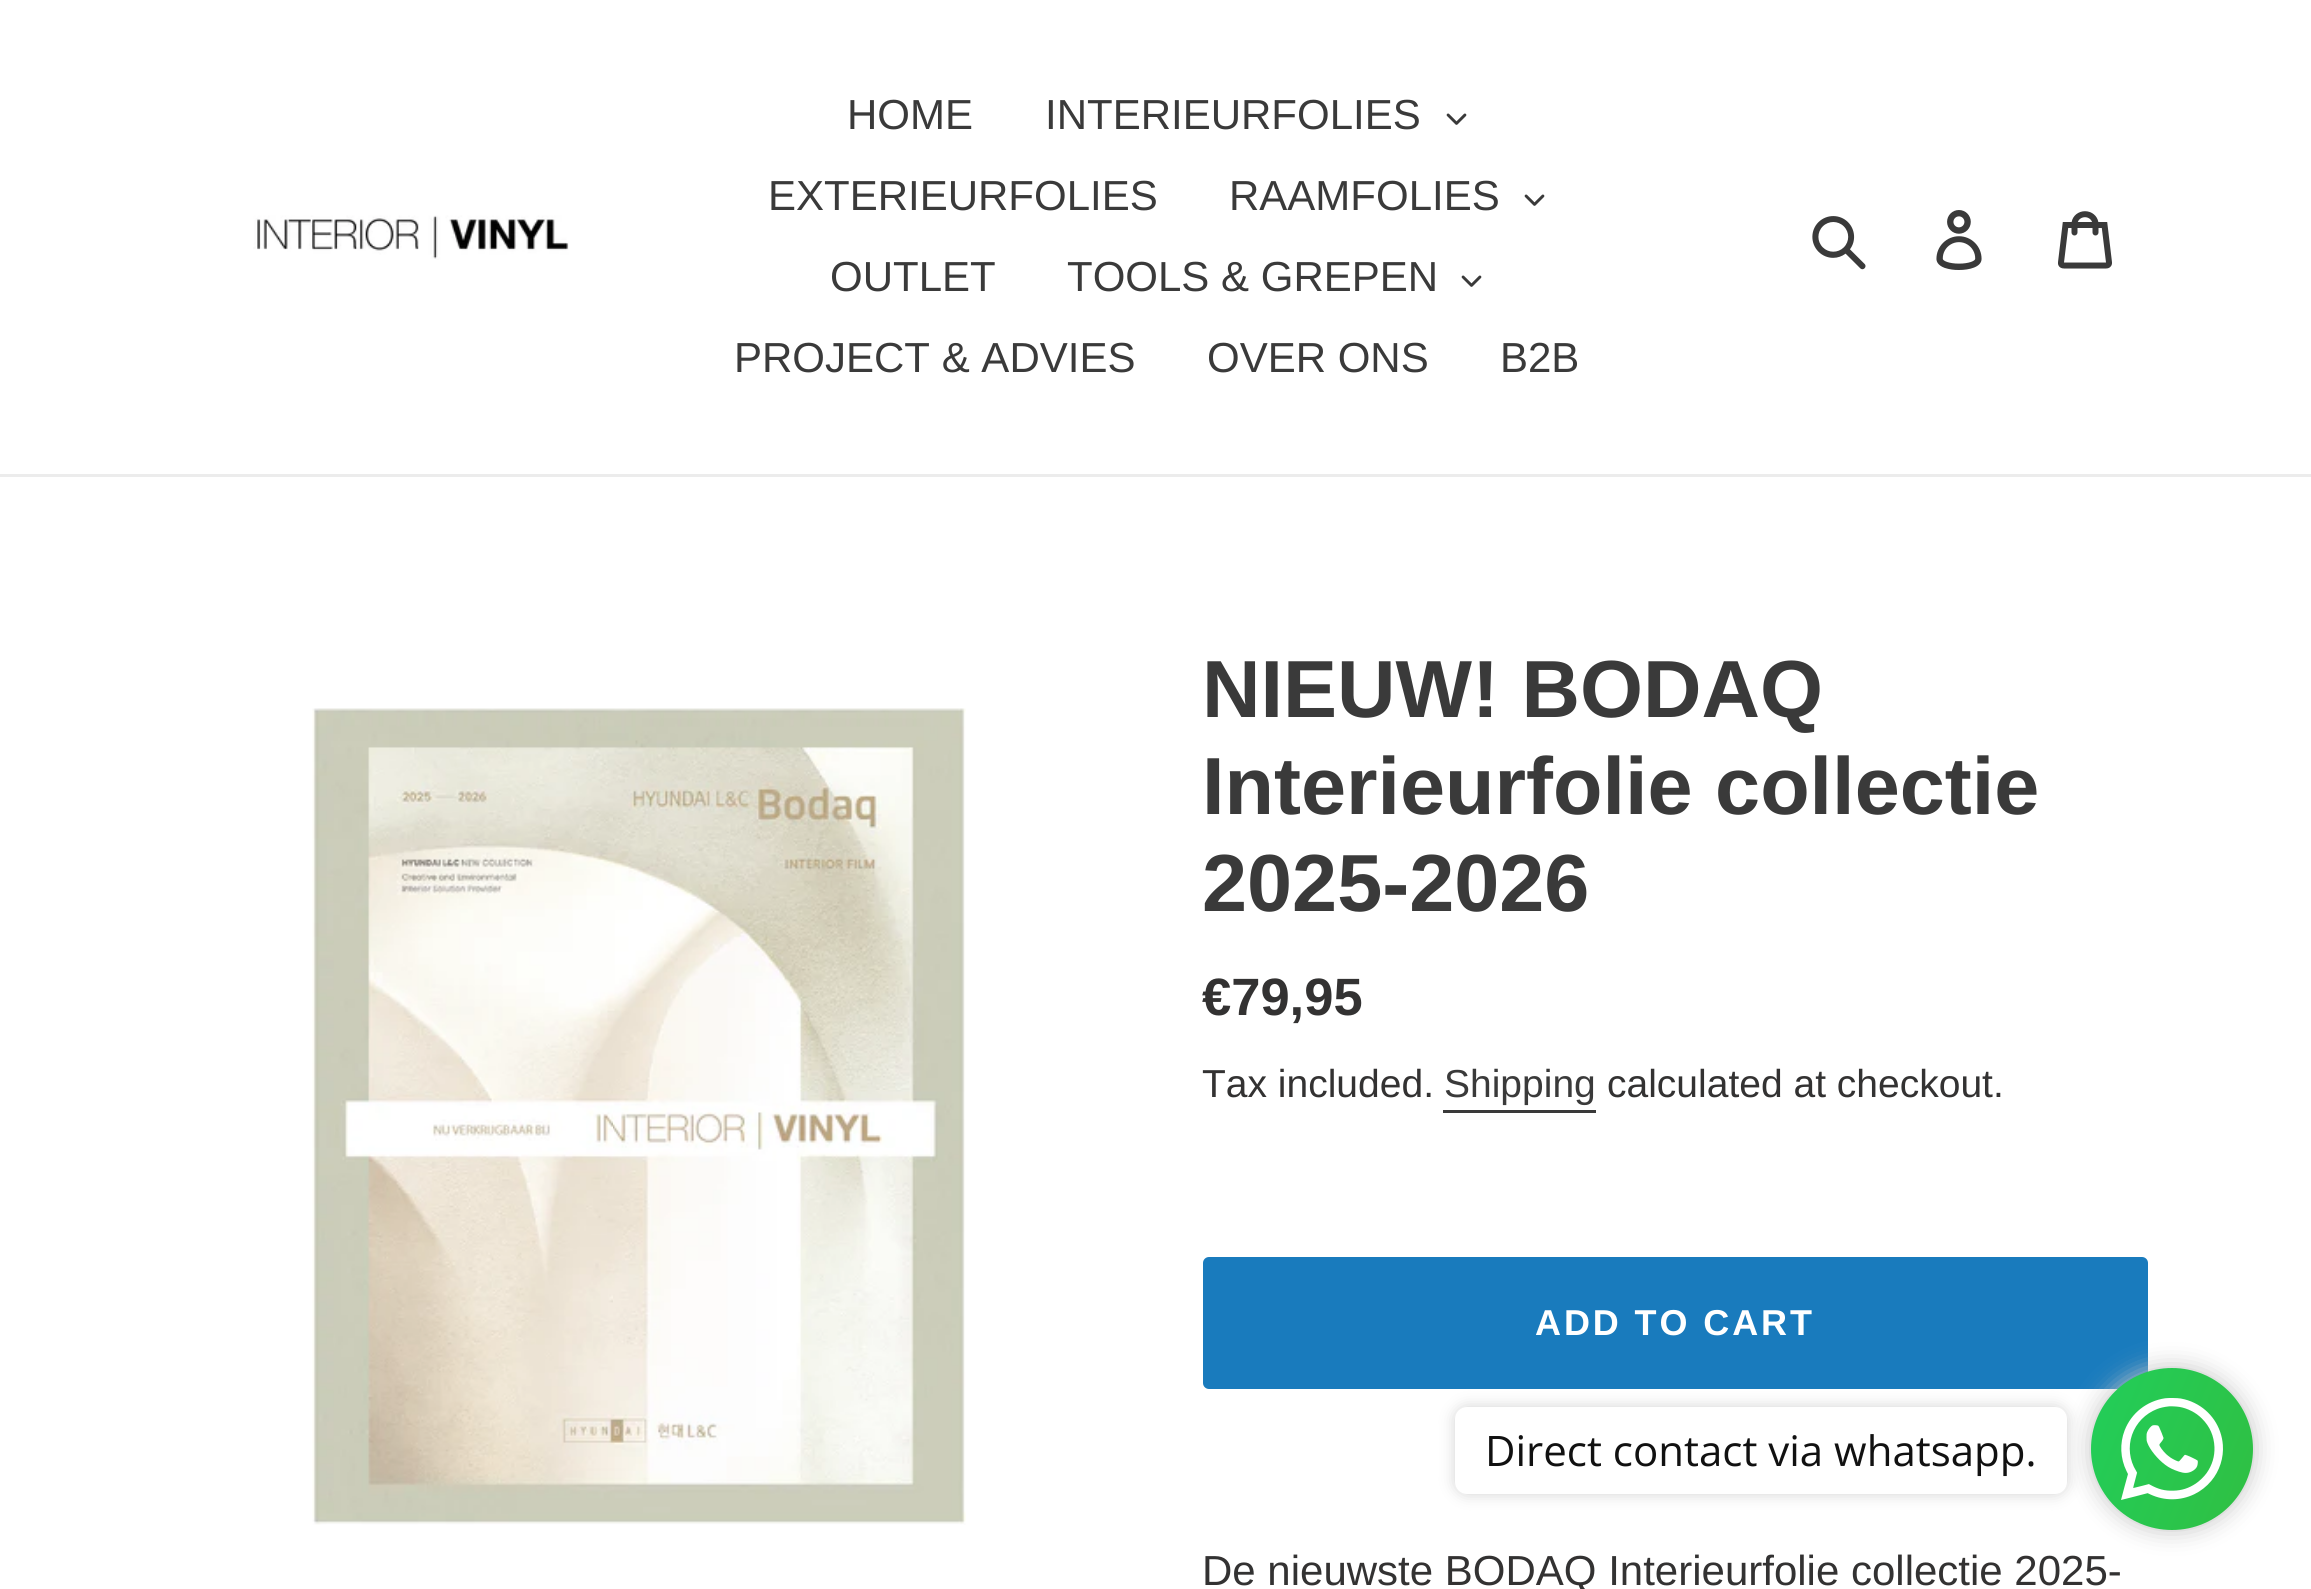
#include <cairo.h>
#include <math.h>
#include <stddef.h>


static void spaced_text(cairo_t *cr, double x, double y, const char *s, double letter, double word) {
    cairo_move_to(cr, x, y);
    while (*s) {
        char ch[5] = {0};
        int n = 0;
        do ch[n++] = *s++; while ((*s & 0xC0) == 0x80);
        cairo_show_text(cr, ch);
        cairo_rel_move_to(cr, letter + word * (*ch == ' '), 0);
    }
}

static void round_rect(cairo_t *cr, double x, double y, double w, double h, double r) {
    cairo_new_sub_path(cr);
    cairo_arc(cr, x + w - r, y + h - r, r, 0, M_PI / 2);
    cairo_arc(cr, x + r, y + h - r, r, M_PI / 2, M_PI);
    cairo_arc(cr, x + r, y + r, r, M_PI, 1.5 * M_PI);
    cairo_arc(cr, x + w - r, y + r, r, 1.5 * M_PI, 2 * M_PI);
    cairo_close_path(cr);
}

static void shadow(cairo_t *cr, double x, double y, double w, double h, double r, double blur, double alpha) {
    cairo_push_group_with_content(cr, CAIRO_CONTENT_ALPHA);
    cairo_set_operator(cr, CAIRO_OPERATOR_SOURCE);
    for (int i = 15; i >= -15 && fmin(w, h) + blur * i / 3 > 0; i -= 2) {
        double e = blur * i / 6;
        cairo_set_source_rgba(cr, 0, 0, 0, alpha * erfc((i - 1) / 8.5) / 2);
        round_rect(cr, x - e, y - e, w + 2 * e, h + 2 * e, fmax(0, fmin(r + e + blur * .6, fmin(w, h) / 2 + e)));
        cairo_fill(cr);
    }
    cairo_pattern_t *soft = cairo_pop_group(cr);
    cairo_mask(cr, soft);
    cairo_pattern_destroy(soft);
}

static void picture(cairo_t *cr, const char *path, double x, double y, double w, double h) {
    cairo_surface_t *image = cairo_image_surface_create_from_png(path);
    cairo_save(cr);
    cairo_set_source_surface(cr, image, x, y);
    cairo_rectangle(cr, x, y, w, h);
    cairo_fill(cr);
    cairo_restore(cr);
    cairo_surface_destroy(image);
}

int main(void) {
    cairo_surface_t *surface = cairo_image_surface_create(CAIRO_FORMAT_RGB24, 2311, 1589);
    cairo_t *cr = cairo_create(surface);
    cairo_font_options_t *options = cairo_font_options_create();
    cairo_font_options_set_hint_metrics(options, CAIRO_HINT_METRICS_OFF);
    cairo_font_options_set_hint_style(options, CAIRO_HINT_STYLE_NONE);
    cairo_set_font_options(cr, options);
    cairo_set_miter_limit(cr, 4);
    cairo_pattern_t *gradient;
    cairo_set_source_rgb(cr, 1, 1, 1);
    cairo_paint(cr);
    cairo_set_source_rgb(cr, 0.922, 0.922, 0.922);
    cairo_rectangle(cr, 0, 474, 2311, 3);
    cairo_fill(cr);
    picture(cr, "img1.png", 253, 215, 316, 45);
    cairo_select_font_face(cr, "Liberation Sans", CAIRO_FONT_SLANT_NORMAL, CAIRO_FONT_WEIGHT_NORMAL);
    cairo_set_font_size(cr, 42);
    cairo_set_source_rgb(cr, 0.227, 0.227, 0.227);
    cairo_move_to(cr, 847, 129);
    cairo_show_text(cr, "HOME");
    cairo_move_to(cr, 1045, 129);
    cairo_show_text(cr, "INTERIEURFOLIES");
    picture(cr, "img2.png", 1446, 113, 21, 12);
    cairo_move_to(cr, 768, 210);
    cairo_show_text(cr, "EXTERIEURFOLIES");
    cairo_move_to(cr, 1229, 210);
    cairo_show_text(cr, "RAAMFOLIES");
    picture(cr, "img2.png", 1524, 194, 21, 12);
    cairo_move_to(cr, 830, 291);
    cairo_show_text(cr, "OUTLET");
    cairo_move_to(cr, 1067, 291);
    cairo_show_text(cr, "TOOLS & GREPEN");
    picture(cr, "img2.png", 1461, 275, 21, 12);
    cairo_move_to(cr, 734, 372);
    cairo_show_text(cr, "PROJECT & ADVIES");
    cairo_move_to(cr, 1207, 372);
    cairo_show_text(cr, "OVER ONS");
    cairo_move_to(cr, 1500, 372);
    cairo_show_text(cr, "B2B");
    picture(cr, "img3.png", 1812, 216, 54, 54);
    picture(cr, "img4.png", 1936, 210, 46, 60);
    picture(cr, "img5.png", 2058, 211, 54, 58);
    picture(cr, "img6.png", 312, 708, 654, 817);
    cairo_select_font_face(cr, "Liberation Sans", CAIRO_FONT_SLANT_NORMAL, CAIRO_FONT_WEIGHT_BOLD);
    cairo_set_font_size(cr, 81);
    cairo_move_to(cr, 1202, 717);
    cairo_show_text(cr, "NIEUW! BODAQ");
    cairo_move_to(cr, 1202, 814);
    cairo_show_text(cr, "Interieurfolie collectie");
    cairo_move_to(cr, 1202, 911);
    cairo_show_text(cr, "2025-2026");
    cairo_set_font_size(cr, 52.5);
    cairo_set_source_rgb(cr, 0.2, 0.196, 0.196);
    cairo_move_to(cr, 1202, 1015);
    cairo_show_text(cr, "€79,95");
    cairo_select_font_face(cr, "Liberation Sans", CAIRO_FONT_SLANT_NORMAL, CAIRO_FONT_WEIGHT_NORMAL);
    cairo_set_font_size(cr, 39);
    cairo_move_to(cr, 1202, 1097);
    cairo_show_text(cr, "Tax included.");
    cairo_set_source_rgb(cr, 0.227, 0.227, 0.227);
    cairo_move_to(cr, 1444, 1097);
    cairo_show_text(cr, "Shipping");
    cairo_rectangle(cr, 1443, 1110, 153, 3);
    cairo_fill(cr);
    cairo_set_source_rgb(cr, 0.2, 0.196, 0.196);
    cairo_move_to(cr, 1607, 1097);
    cairo_show_text(cr, "calculated at checkout.");
    cairo_set_source_rgb(cr, 0.098, 0.482, 0.741);
    round_rect(cr, 1203, 1257, 945, 132, 6);
    cairo_fill(cr);
    cairo_select_font_face(cr, "Liberation Sans", CAIRO_FONT_SLANT_NORMAL, CAIRO_FONT_WEIGHT_BOLD);
    cairo_set_font_size(cr, 36);
    cairo_set_source_rgb(cr, 1, 1, 1);
    spaced_text(cr, 1535, 1335, "ADD TO CART", 2.9, 0);
    cairo_select_font_face(cr, "Liberation Sans", CAIRO_FONT_SLANT_NORMAL, CAIRO_FONT_WEIGHT_NORMAL);
    cairo_set_font_size(cr, 42);
    cairo_set_source_rgb(cr, 0.2, 0.196, 0.196);
    cairo_move_to(cr, 1202, 1585);
    cairo_show_text(cr, "De nieuwste BODAQ Interieurfolie collectie 2025-");
    cairo_set_source_rgb(cr, 0.827, 0.827, 0.827);
    shadow(cr, 1455, 1407, 612, 87, 12, 7.5, 1);
    cairo_set_source_rgb(cr, 1, 1, 1);
    round_rect(cr, 1455, 1407, 612, 87, 12);
    cairo_fill(cr);
    cairo_select_font_face(cr, "Open Sans", CAIRO_FONT_SLANT_NORMAL, CAIRO_FONT_WEIGHT_NORMAL);
    cairo_set_source_rgb(cr, 0.067, 0.067, 0.067);
    cairo_move_to(cr, 1485, 1466);
    cairo_show_text(cr, "Direct contact via whatsapp.");
    cairo_set_source_rgb(cr, 0.761, 0.761, 0.761);
    shadow(cr, 2091, 1368, 162, 162, 81, 12, 1);
    gradient = cairo_pattern_create_linear(2074, 1409, 2270, 1489);
    cairo_pattern_add_color_stop_rgba(gradient, 0, 0.133, 0.808, 0.353, 1);
    cairo_pattern_add_color_stop_rgba(gradient, 0, 0.133, 0.808, 0.353, 1);
    cairo_pattern_add_color_stop_rgba(gradient, 1, 0.188, 0.749, 0.259, 1);
    cairo_set_source(cr, gradient);
    cairo_pattern_destroy(gradient);
    cairo_arc(cr, 2172, 1449, 81, 0, 2 * M_PI);
    cairo_fill(cr);
    picture(cr, "img7.png", 2121, 1398, 102, 102);
    cairo_surface_write_to_png(surface, "page.png");
    cairo_font_options_destroy(options);
    cairo_destroy(cr);
    cairo_surface_destroy(surface);
    return 0;
}
